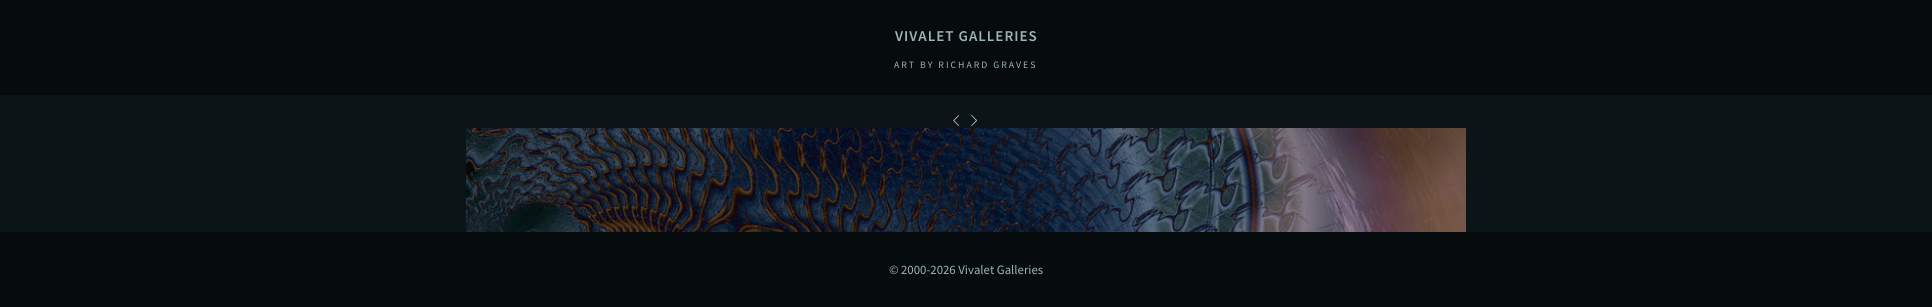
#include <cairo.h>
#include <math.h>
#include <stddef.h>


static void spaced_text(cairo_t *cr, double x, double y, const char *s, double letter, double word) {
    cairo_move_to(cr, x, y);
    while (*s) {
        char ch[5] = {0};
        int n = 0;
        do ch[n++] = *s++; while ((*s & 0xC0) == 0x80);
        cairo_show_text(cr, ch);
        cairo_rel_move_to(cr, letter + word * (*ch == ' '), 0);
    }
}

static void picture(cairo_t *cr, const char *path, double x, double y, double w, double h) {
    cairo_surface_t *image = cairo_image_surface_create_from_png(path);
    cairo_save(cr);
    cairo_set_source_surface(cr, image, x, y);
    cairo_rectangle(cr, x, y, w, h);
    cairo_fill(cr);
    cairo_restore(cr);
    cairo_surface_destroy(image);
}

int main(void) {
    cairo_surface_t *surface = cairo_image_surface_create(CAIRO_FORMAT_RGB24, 1932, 307);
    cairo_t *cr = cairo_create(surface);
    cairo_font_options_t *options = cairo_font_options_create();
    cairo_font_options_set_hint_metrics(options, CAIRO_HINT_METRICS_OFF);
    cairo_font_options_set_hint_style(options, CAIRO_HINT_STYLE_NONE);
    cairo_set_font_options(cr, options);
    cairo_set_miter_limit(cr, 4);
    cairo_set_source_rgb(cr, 0.043, 0.082, 0.09);
    cairo_paint(cr);
    cairo_set_source_rgb(cr, 0.024, 0.047, 0.051);
    cairo_rectangle(cr, 0, 0, 1932, 95);
    cairo_fill(cr);
    cairo_select_font_face(cr, "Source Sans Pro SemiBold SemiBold", CAIRO_FONT_SLANT_NORMAL, CAIRO_FONT_WEIGHT_NORMAL);
    cairo_set_font_size(cr, 15);
    cairo_set_source_rgb(cr, 0.62, 0.706, 0.722);
    spaced_text(cr, 895, 41, "VIVALET GALLERIES", 1, 0);
    cairo_select_font_face(cr, "Source Sans Pro", CAIRO_FONT_SLANT_NORMAL, CAIRO_FONT_WEIGHT_NORMAL);
    cairo_set_font_size(cr, 9.75);
    spaced_text(cr, 894, 68, "ART BY RICHARD GRAVES", 2, 0);
    picture(cr, "img1.png", 953, 115, 7, 11);
    picture(cr, "img2.png", 971, 115, 7, 11);
    picture(cr, "img3.png", 466, 128, 1000, 104);
    cairo_set_source_rgb(cr, 0.024, 0.047, 0.051);
    cairo_rectangle(cr, 0, 232, 1932, 75);
    cairo_fill(cr);
    cairo_set_font_size(cr, 12.75);
    cairo_set_source_rgb(cr, 0.62, 0.706, 0.722);
    cairo_move_to(cr, 889, 274);
    cairo_show_text(cr, "© 2000-2026 Vivalet Galleries");
    cairo_surface_write_to_png(surface, "page.png");
    cairo_font_options_destroy(options);
    cairo_destroy(cr);
    cairo_surface_destroy(surface);
    return 0;
}
